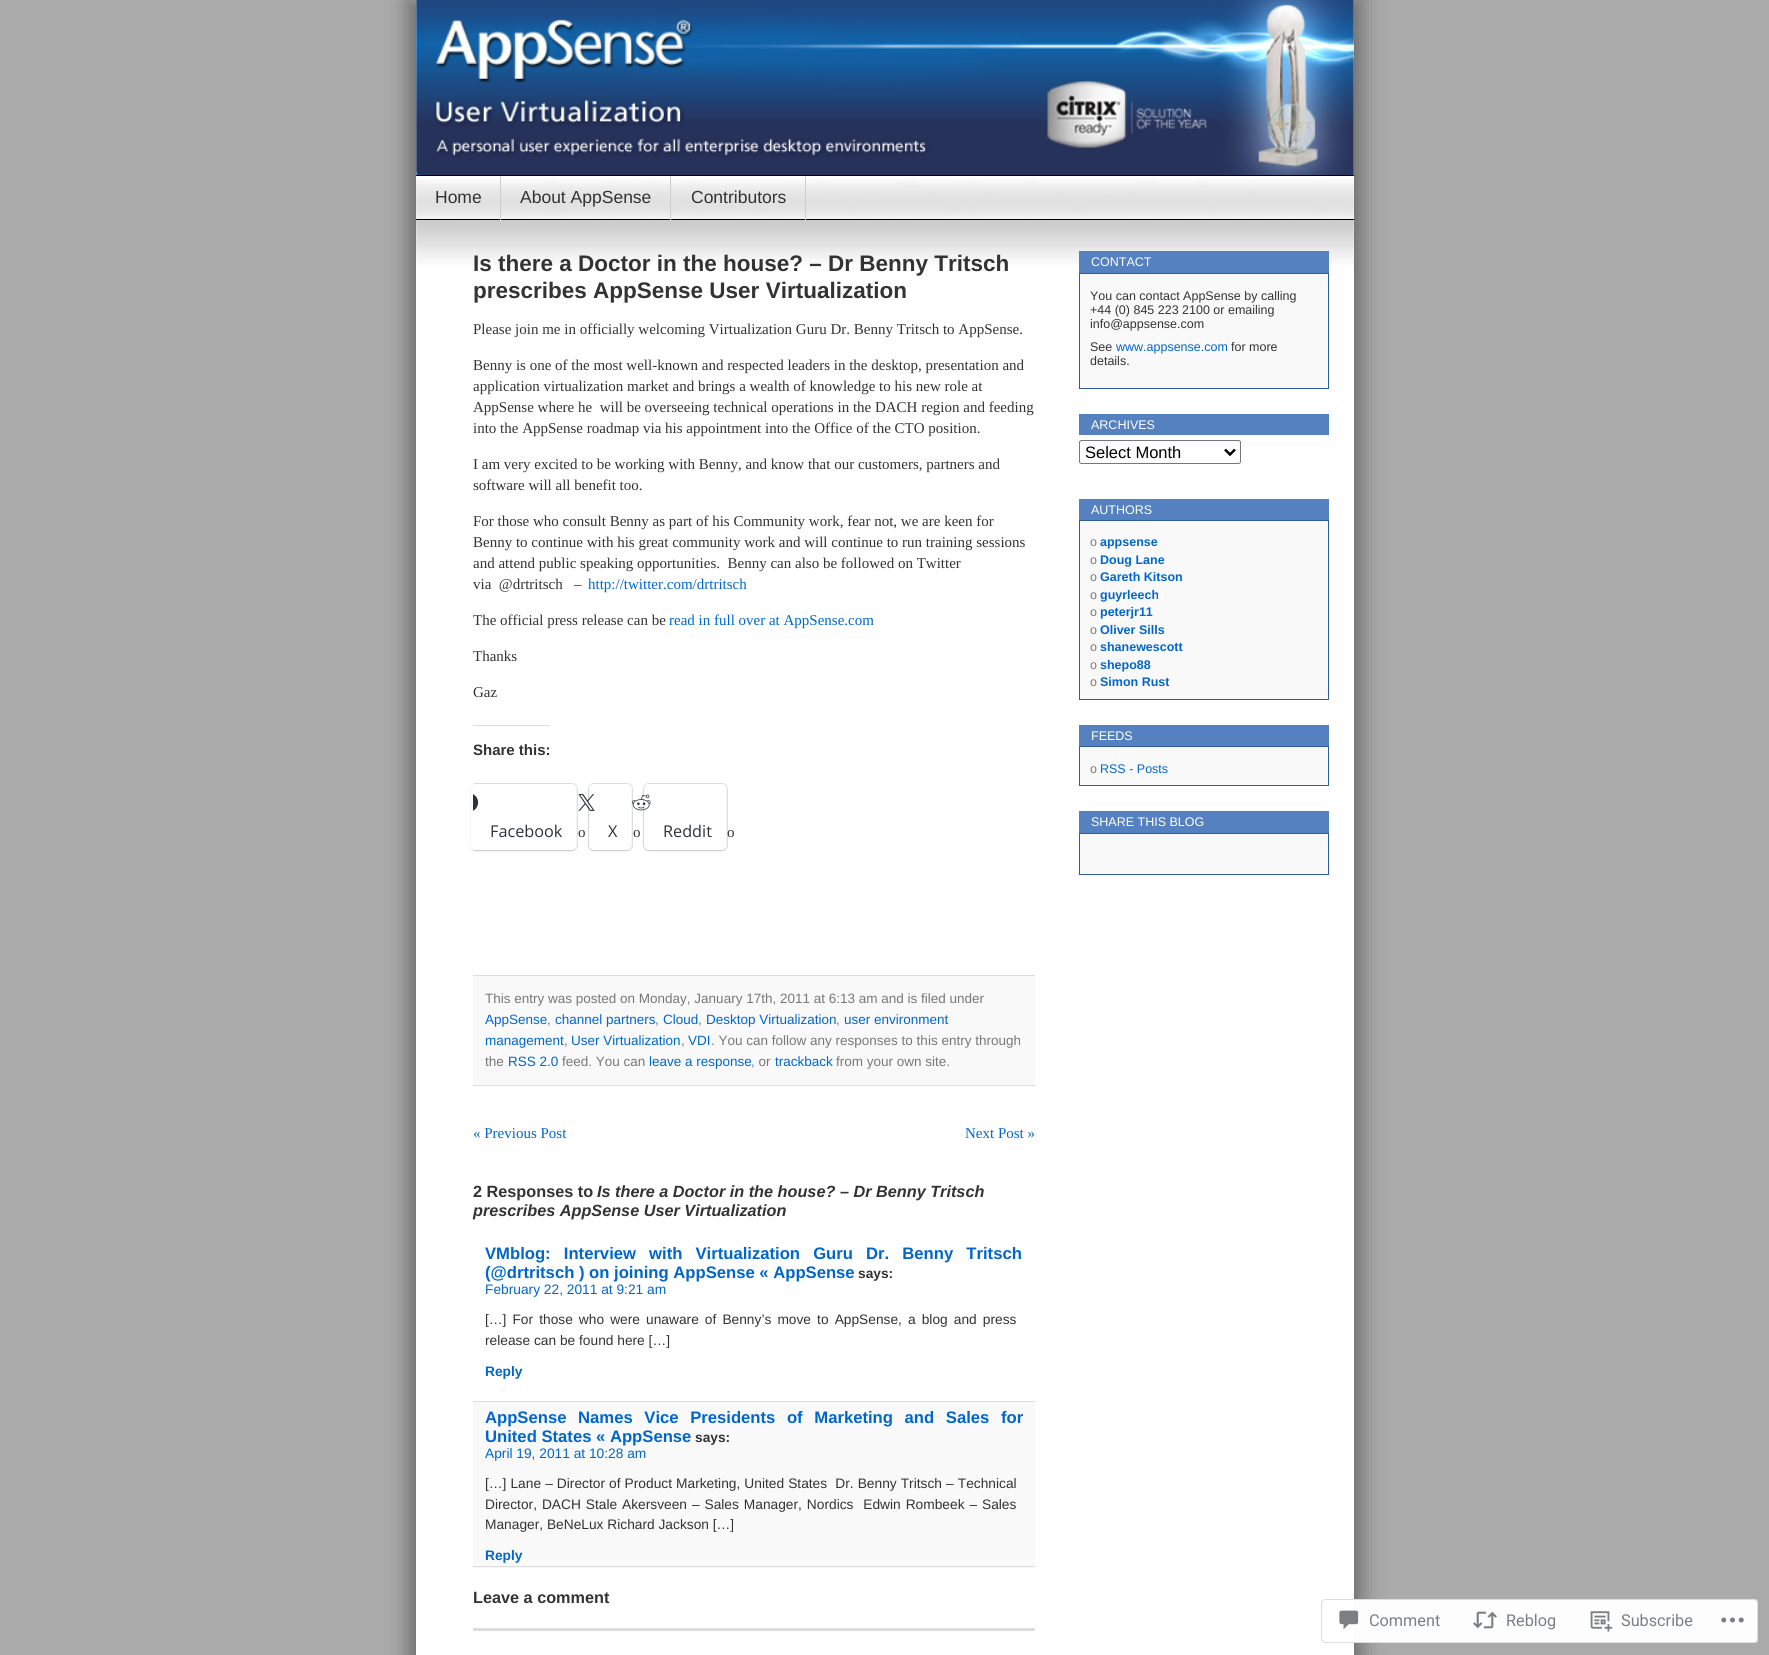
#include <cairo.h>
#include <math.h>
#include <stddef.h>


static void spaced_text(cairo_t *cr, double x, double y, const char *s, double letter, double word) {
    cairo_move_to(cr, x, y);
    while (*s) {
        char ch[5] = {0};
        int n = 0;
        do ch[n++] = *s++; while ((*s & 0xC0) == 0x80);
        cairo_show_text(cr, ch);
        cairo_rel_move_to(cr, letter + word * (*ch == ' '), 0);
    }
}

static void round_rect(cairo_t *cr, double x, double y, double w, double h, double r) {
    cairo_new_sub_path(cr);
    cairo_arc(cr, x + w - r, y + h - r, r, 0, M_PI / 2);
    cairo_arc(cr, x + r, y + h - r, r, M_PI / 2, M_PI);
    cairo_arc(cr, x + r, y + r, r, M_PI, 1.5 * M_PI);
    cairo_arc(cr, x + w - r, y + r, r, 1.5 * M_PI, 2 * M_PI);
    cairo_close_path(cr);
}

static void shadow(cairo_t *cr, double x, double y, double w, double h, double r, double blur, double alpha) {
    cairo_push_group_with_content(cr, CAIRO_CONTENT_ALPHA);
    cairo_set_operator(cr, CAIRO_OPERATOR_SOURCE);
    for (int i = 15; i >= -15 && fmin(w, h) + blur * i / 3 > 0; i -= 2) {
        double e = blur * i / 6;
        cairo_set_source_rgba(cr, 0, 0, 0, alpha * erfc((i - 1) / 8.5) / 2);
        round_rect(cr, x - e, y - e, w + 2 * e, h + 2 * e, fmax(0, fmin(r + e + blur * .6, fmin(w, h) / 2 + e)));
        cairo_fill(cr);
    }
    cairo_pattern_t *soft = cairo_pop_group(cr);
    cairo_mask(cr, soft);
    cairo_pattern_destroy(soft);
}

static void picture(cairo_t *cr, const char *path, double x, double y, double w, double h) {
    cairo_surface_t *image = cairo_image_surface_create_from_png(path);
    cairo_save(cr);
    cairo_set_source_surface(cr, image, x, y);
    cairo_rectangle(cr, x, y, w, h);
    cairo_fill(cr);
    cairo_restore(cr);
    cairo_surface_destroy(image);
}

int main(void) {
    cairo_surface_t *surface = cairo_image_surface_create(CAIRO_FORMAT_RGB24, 1769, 1655);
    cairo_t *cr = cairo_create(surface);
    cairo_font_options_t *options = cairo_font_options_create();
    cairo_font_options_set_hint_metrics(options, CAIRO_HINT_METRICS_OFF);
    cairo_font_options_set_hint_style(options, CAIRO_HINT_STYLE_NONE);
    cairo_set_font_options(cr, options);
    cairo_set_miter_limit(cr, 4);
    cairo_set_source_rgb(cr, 0.667, 0.667, 0.667);
    cairo_paint(cr);
    cairo_set_source_rgb(cr, 0, 0, 0);
    shadow(cr, 406, 0, 938, 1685, 0, 10, 0.3);
    shadow(cr, 426, -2, 938, 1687, 0, 10, 0.3);
    cairo_set_source_rgb(cr, 1, 1, 1);
    cairo_rectangle(cr, 416, 0, 938, 1655);
    cairo_fill(cr);
    cairo_set_source_rgb(cr, 0, 0, 0);
    cairo_rectangle(cr, 416, 175, 938, 1);
    cairo_fill(cr);
    picture(cr, "img1.png", 416, 0, 938, 175);
    picture(cr, "img2.png", 416, 179, 938, 40);
    cairo_rectangle(cr, 416, 219, 938, 1);
    cairo_fill(cr);
    cairo_set_source_rgb(cr, 0.808, 0.808, 0.808);
    cairo_rectangle(cr, 500, 176, 1, 44);
    cairo_fill(cr);
    cairo_select_font_face(cr, "Liberation Sans", CAIRO_FONT_SLANT_NORMAL, CAIRO_FONT_WEIGHT_NORMAL);
    cairo_set_font_size(cr, 17.5);
    cairo_set_source_rgb(cr, 0.2, 0.2, 0.2);
    cairo_move_to(cr, 435, 203);
    cairo_show_text(cr, "Home");
    cairo_set_source_rgb(cr, 0.808, 0.808, 0.808);
    cairo_rectangle(cr, 670, 176, 1, 44);
    cairo_fill(cr);
    cairo_set_source_rgb(cr, 0.2, 0.2, 0.2);
    cairo_move_to(cr, 520, 203);
    cairo_show_text(cr, "About AppSense");
    cairo_set_source_rgb(cr, 0.808, 0.808, 0.808);
    cairo_rectangle(cr, 805, 176, 1, 44);
    cairo_fill(cr);
    cairo_set_source_rgb(cr, 0.2, 0.2, 0.2);
    cairo_move_to(cr, 691, 203);
    cairo_show_text(cr, "Contributors");
    picture(cr, "img3.png", 416, 220, 938, 45);
    cairo_select_font_face(cr, "Liberation Sans", CAIRO_FONT_SLANT_NORMAL, CAIRO_FONT_WEIGHT_BOLD);
    cairo_set_font_size(cr, 22.5);
    cairo_move_to(cr, 473, 271);
    cairo_show_text(cr, "Is there a Doctor in the house? – Dr Benny Tritsch");
    cairo_move_to(cr, 473, 298);
    cairo_show_text(cr, "prescribes AppSense User Virtualization");
    cairo_select_font_face(cr, "Liberation Serif", CAIRO_FONT_SLANT_NORMAL, CAIRO_FONT_WEIGHT_NORMAL);
    cairo_set_font_size(cr, 15);
    cairo_move_to(cr, 473, 334);
    cairo_show_text(cr, "Please join me in officially welcoming Virtualization Guru Dr. Benny Tritsch to AppSense.");
    cairo_move_to(cr, 473, 370);
    cairo_show_text(cr, "Benny is one of the most well-known and respected leaders in the desktop, presentation and");
    cairo_move_to(cr, 473, 391);
    cairo_show_text(cr, "application virtualization market and brings a wealth of knowledge to his new role at");
    cairo_move_to(cr, 473, 412);
    cairo_show_text(cr, "AppSense where he  will be overseeing technical operations in the DACH region and feeding");
    cairo_move_to(cr, 473, 433);
    cairo_show_text(cr, "into the AppSense roadmap via his appointment into the Office of the CTO position.");
    cairo_move_to(cr, 473, 469);
    cairo_show_text(cr, "I am very excited to be working with Benny, and know that our customers, partners and");
    cairo_move_to(cr, 473, 490);
    cairo_show_text(cr, "software will all benefit too.");
    cairo_move_to(cr, 473, 526);
    cairo_show_text(cr, "For those who consult Benny as part of his Community work, fear not, we are keen for");
    cairo_move_to(cr, 473, 547);
    cairo_show_text(cr, "Benny to continue with his great community work and will continue to run training sessions");
    cairo_move_to(cr, 473, 568);
    cairo_show_text(cr, "and attend public speaking opportunities.  Benny can also be followed on Twitter");
    cairo_move_to(cr, 473, 589);
    cairo_show_text(cr, "via  @drtritsch   –");
    cairo_set_source_rgb(cr, 0, 0.4, 0.8);
    cairo_move_to(cr, 588, 589);
    cairo_show_text(cr, "http://twitter.com/drtritsch");
    cairo_save(cr);
    cairo_rectangle(cr, 473, 304, 562, 841);
    cairo_clip(cr);
    cairo_set_source_rgb(cr, 0.2, 0.2, 0.2);
    cairo_move_to(cr, 473, 625);
    cairo_show_text(cr, "The official press release can be");
    cairo_restore(cr);
    cairo_move_to(cr, 669, 625);
    cairo_show_text(cr, "read in full over at AppSense.com");
    cairo_save(cr);
    cairo_rectangle(cr, 473, 304, 562, 841);
    cairo_clip(cr);
    cairo_set_source_rgb(cr, 0.2, 0.2, 0.2);
    cairo_move_to(cr, 473, 661);
    cairo_show_text(cr, "Thanks");
    cairo_restore(cr);
    cairo_set_source_rgb(cr, 0.2, 0.2, 0.2);
    cairo_move_to(cr, 473, 697);
    cairo_show_text(cr, "Gaz");
    cairo_set_source_rgb(cr, 0.863, 0.863, 0.871);
    cairo_rectangle(cr, 473, 725, 77, 1);
    cairo_fill(cr);
    cairo_select_font_face(cr, "Liberation Sans", CAIRO_FONT_SLANT_NORMAL, CAIRO_FONT_WEIGHT_BOLD);
    cairo_set_source_rgb(cr, 0.2, 0.2, 0.2);
    cairo_move_to(cr, 473, 755);
    cairo_show_text(cr, "Share this:");
    cairo_save(cr);
    cairo_rectangle(cr, 473, 304, 562, 841);
    cairo_clip(cr);
    round_rect(cr, 470.5, 783.5, 107, 67, 5.5);
    cairo_set_source_rgb(cr, 0.878, 0.878, 0.878);
    cairo_set_line_width(cr, 1);
    cairo_stroke(cr);
    cairo_restore(cr);
    cairo_save(cr);
    cairo_set_fill_rule(cr, CAIRO_FILL_RULE_EVEN_ODD);
    cairo_new_path(cr);
    cairo_move_to(cr, 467, 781);
    cairo_line_to(cr, 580, 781);
    cairo_line_to(cr, 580, 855);
    cairo_line_to(cr, 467, 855);
    cairo_close_path(cr);
    cairo_move_to(cr, 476, 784);
    cairo_line_to(cr, 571, 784);
    cairo_curve_to(cr, 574, 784, 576, 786, 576, 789);
    cairo_line_to(cr, 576, 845);
    cairo_curve_to(cr, 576, 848, 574, 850, 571, 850);
    cairo_line_to(cr, 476, 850);
    cairo_curve_to(cr, 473, 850, 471, 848, 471, 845);
    cairo_line_to(cr, 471, 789);
    cairo_curve_to(cr, 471, 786, 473, 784, 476, 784);
    cairo_close_path(cr);
    cairo_clip(cr);
    cairo_set_source_rgb(cr, 0, 0, 0);
    shadow(cr, 471, 785, 105, 66, 5, 1, 0.12);
    cairo_restore(cr);
    cairo_save(cr);
    cairo_rectangle(cr, 473, 304, 562, 841);
    cairo_clip(cr);
    cairo_set_source_rgb(cr, 1, 1, 1);
    round_rect(cr, 471, 784, 105, 66, 5);
    cairo_fill(cr);
    cairo_restore(cr);
    picture(cr, "img4.png", 473, 794, 6, 17);
    cairo_select_font_face(cr, "Open Sans", CAIRO_FONT_SLANT_NORMAL, CAIRO_FONT_WEIGHT_NORMAL);
    cairo_set_font_size(cr, 16.25);
    cairo_set_source_rgb(cr, 0.173, 0.2, 0.22);
    cairo_move_to(cr, 490, 837);
    cairo_show_text(cr, "Facebook");
    cairo_select_font_face(cr, "Liberation Serif", CAIRO_FONT_SLANT_NORMAL, CAIRO_FONT_WEIGHT_NORMAL);
    cairo_set_font_size(cr, 15);
    cairo_set_source_rgb(cr, 0.2, 0.2, 0.2);
    cairo_move_to(cr, 578, 837);
    cairo_show_text(cr, "o");
    round_rect(cr, 588.5, 783.5, 44, 67, 5.5);
    cairo_set_source_rgb(cr, 0.878, 0.878, 0.878);
    cairo_set_line_width(cr, 1);
    cairo_stroke(cr);
    cairo_set_source_rgb(cr, 0, 0, 0);
    shadow(cr, 589, 785, 42, 66, 5, 1, 0.12);
    cairo_set_source_rgb(cr, 1, 1, 1);
    round_rect(cr, 589, 784, 42, 66, 5);
    cairo_fill(cr);
    picture(cr, "img5.png", 578, 794, 17, 17);
    cairo_select_font_face(cr, "Open Sans", CAIRO_FONT_SLANT_NORMAL, CAIRO_FONT_WEIGHT_NORMAL);
    cairo_set_font_size(cr, 16.25);
    cairo_set_source_rgb(cr, 0.173, 0.2, 0.22);
    cairo_move_to(cr, 608, 837);
    cairo_show_text(cr, "X");
    cairo_select_font_face(cr, "Liberation Serif", CAIRO_FONT_SLANT_NORMAL, CAIRO_FONT_WEIGHT_NORMAL);
    cairo_set_font_size(cr, 15);
    cairo_set_source_rgb(cr, 0.2, 0.2, 0.2);
    cairo_move_to(cr, 633, 837);
    cairo_show_text(cr, "o");
    round_rect(cr, 643.5, 783.5, 84, 67, 5.5);
    cairo_set_source_rgb(cr, 0.878, 0.878, 0.878);
    cairo_stroke(cr);
    cairo_set_source_rgb(cr, 0, 0, 0);
    shadow(cr, 644, 785, 82, 66, 5, 1, 0.12);
    cairo_set_source_rgb(cr, 1, 1, 1);
    round_rect(cr, 644, 784, 82, 66, 5);
    cairo_fill(cr);
    picture(cr, "img6.png", 631, 794, 20, 17);
    cairo_select_font_face(cr, "Open Sans", CAIRO_FONT_SLANT_NORMAL, CAIRO_FONT_WEIGHT_NORMAL);
    cairo_set_font_size(cr, 16.25);
    cairo_set_source_rgb(cr, 0.173, 0.2, 0.22);
    cairo_move_to(cr, 663, 837);
    cairo_show_text(cr, "Reddit");
    cairo_select_font_face(cr, "Liberation Serif", CAIRO_FONT_SLANT_NORMAL, CAIRO_FONT_WEIGHT_NORMAL);
    cairo_set_font_size(cr, 15);
    cairo_set_source_rgb(cr, 0.2, 0.2, 0.2);
    cairo_move_to(cr, 727, 837);
    cairo_show_text(cr, "o");
    cairo_set_source_rgb(cr, 0.973, 0.973, 0.973);
    cairo_rectangle(cr, 473, 976, 562, 109);
    cairo_fill(cr);
    cairo_set_source_rgb(cr, 0.867, 0.867, 0.867);
    cairo_rectangle(cr, 473, 975, 562, 1);
    cairo_fill(cr);
    cairo_rectangle(cr, 473, 1085, 562, 1);
    cairo_fill(cr);
    cairo_select_font_face(cr, "Liberation Sans", CAIRO_FONT_SLANT_NORMAL, CAIRO_FONT_WEIGHT_NORMAL);
    cairo_set_font_size(cr, 13.5);
    cairo_set_source_rgb(cr, 0.467, 0.467, 0.467);
    cairo_move_to(cr, 485, 1003);
    cairo_show_text(cr, "This entry was posted on Monday, January 17th, 2011 at 6:13 am and is filed under");
    cairo_set_source_rgb(cr, 0, 0.4, 0.8);
    cairo_move_to(cr, 485, 1024);
    cairo_show_text(cr, "AppSense");
    cairo_set_source_rgb(cr, 0.467, 0.467, 0.467);
    cairo_move_to(cr, 547, 1024);
    cairo_show_text(cr, ",");
    cairo_set_source_rgb(cr, 0, 0.4, 0.8);
    cairo_move_to(cr, 555, 1024);
    cairo_show_text(cr, "channel partners");
    cairo_set_source_rgb(cr, 0.467, 0.467, 0.467);
    cairo_move_to(cr, 655, 1024);
    cairo_show_text(cr, ",");
    cairo_set_source_rgb(cr, 0, 0.4, 0.8);
    cairo_move_to(cr, 663, 1024);
    cairo_show_text(cr, "Cloud");
    cairo_set_source_rgb(cr, 0.467, 0.467, 0.467);
    cairo_move_to(cr, 698, 1024);
    cairo_show_text(cr, ",");
    cairo_set_source_rgb(cr, 0, 0.4, 0.8);
    cairo_move_to(cr, 706, 1024);
    cairo_show_text(cr, "Desktop Virtualization");
    cairo_set_source_rgb(cr, 0.467, 0.467, 0.467);
    cairo_move_to(cr, 836, 1024);
    cairo_show_text(cr, ",");
    cairo_set_source_rgb(cr, 0, 0.4, 0.8);
    cairo_move_to(cr, 844, 1024);
    cairo_show_text(cr, "user environment");
    cairo_move_to(cr, 485, 1045);
    cairo_show_text(cr, "management");
    cairo_set_source_rgb(cr, 0.467, 0.467, 0.467);
    cairo_move_to(cr, 564, 1045);
    cairo_show_text(cr, ",");
    cairo_set_source_rgb(cr, 0, 0.4, 0.8);
    cairo_move_to(cr, 571, 1045);
    cairo_show_text(cr, "User Virtualization");
    cairo_set_source_rgb(cr, 0.467, 0.467, 0.467);
    cairo_move_to(cr, 681, 1045);
    cairo_show_text(cr, ",");
    cairo_set_source_rgb(cr, 0, 0.4, 0.8);
    cairo_move_to(cr, 688, 1045);
    cairo_show_text(cr, "VDI");
    cairo_set_source_rgb(cr, 0.467, 0.467, 0.467);
    cairo_move_to(cr, 711, 1045);
    cairo_show_text(cr, ". You can follow any responses to this entry through");
    cairo_move_to(cr, 485, 1066);
    cairo_show_text(cr, "the");
    cairo_set_source_rgb(cr, 0, 0.4, 0.8);
    cairo_move_to(cr, 508, 1066);
    cairo_show_text(cr, "RSS 2.0");
    cairo_set_source_rgb(cr, 0.467, 0.467, 0.467);
    cairo_move_to(cr, 562, 1066);
    cairo_show_text(cr, "feed. You can");
    cairo_set_source_rgb(cr, 0, 0.4, 0.8);
    cairo_move_to(cr, 649, 1066);
    cairo_show_text(cr, "leave a response");
    cairo_set_source_rgb(cr, 0.467, 0.467, 0.467);
    cairo_move_to(cr, 751, 1066);
    cairo_show_text(cr, ", or");
    cairo_set_source_rgb(cr, 0, 0.4, 0.8);
    cairo_move_to(cr, 775, 1066);
    cairo_show_text(cr, "trackback");
    cairo_set_source_rgb(cr, 0.467, 0.467, 0.467);
    cairo_move_to(cr, 836, 1066);
    cairo_show_text(cr, "from your own site.");
    cairo_select_font_face(cr, "Liberation Serif", CAIRO_FONT_SLANT_NORMAL, CAIRO_FONT_WEIGHT_NORMAL);
    cairo_set_font_size(cr, 15);
    cairo_set_source_rgb(cr, 0, 0.4, 0.8);
    cairo_move_to(cr, 473, 1138);
    cairo_show_text(cr, "« Previous Post");
    cairo_move_to(cr, 965, 1138);
    cairo_show_text(cr, "Next Post »");
    cairo_select_font_face(cr, "Liberation Sans", CAIRO_FONT_SLANT_NORMAL, CAIRO_FONT_WEIGHT_BOLD);
    cairo_set_font_size(cr, 16.25);
    cairo_set_source_rgb(cr, 0.2, 0.2, 0.2);
    cairo_move_to(cr, 473, 1197);
    cairo_show_text(cr, "2 Responses to");
    cairo_select_font_face(cr, "Liberation Sans", CAIRO_FONT_SLANT_ITALIC, CAIRO_FONT_WEIGHT_BOLD);
    cairo_move_to(cr, 597, 1197);
    cairo_show_text(cr, "Is there a Doctor in the house? – Dr Benny Tritsch");
    cairo_move_to(cr, 473, 1216);
    cairo_show_text(cr, "prescribes AppSense User Virtualization");
    cairo_select_font_face(cr, "Liberation Sans", CAIRO_FONT_SLANT_NORMAL, CAIRO_FONT_WEIGHT_BOLD);
    cairo_set_font_size(cr, 16.65);
    cairo_set_source_rgb(cr, 0, 0.4, 0.8);
    spaced_text(cr, 485, 1259, "VMblog: Interview with Virtualization Guru Dr. Benny Tritsch", 0, 8.5);
    cairo_move_to(cr, 485, 1278);
    cairo_show_text(cr, "(@drtritsch ) on joining AppSense « AppSense");
    cairo_set_font_size(cr, 13.75);
    cairo_set_source_rgb(cr, 0.2, 0.2, 0.2);
    cairo_move_to(cr, 858, 1278);
    cairo_show_text(cr, "says:");
    cairo_select_font_face(cr, "Liberation Sans", CAIRO_FONT_SLANT_NORMAL, CAIRO_FONT_WEIGHT_NORMAL);
    cairo_set_source_rgb(cr, 0, 0.4, 0.8);
    cairo_move_to(cr, 485, 1294);
    cairo_show_text(cr, "February 22, 2011 at 9:21 am");
    cairo_set_source_rgb(cr, 0.2, 0.2, 0.2);
    spaced_text(cr, 485, 1324, "[…] For those who were unaware of Benny’s move to AppSense, a blog and press", 0, 2.25);
    cairo_move_to(cr, 485, 1345);
    cairo_show_text(cr, "release can be found here […]");
    cairo_select_font_face(cr, "Liberation Sans", CAIRO_FONT_SLANT_NORMAL, CAIRO_FONT_WEIGHT_BOLD);
    cairo_set_source_rgb(cr, 0, 0.4, 0.8);
    cairo_move_to(cr, 485, 1376);
    cairo_show_text(cr, "Reply");
    cairo_set_source_rgb(cr, 0.973, 0.973, 0.973);
    cairo_rectangle(cr, 473, 1402, 562, 166);
    cairo_fill(cr);
    cairo_set_source_rgb(cr, 0.867, 0.867, 0.867);
    cairo_rectangle(cr, 473, 1401, 562, 1);
    cairo_fill(cr);
    cairo_rectangle(cr, 473, 1566, 562, 1);
    cairo_fill(cr);
    cairo_set_font_size(cr, 16.65);
    cairo_set_source_rgb(cr, 0, 0.4, 0.8);
    spaced_text(cr, 485, 1423, "AppSense Names Vice Presidents of Marketing and Sales for", 0, 7);
    cairo_move_to(cr, 485, 1442);
    cairo_show_text(cr, "United States « AppSense");
    cairo_set_font_size(cr, 13.75);
    cairo_set_source_rgb(cr, 0.2, 0.2, 0.2);
    cairo_move_to(cr, 695, 1442);
    cairo_show_text(cr, "says:");
    cairo_select_font_face(cr, "Liberation Sans", CAIRO_FONT_SLANT_NORMAL, CAIRO_FONT_WEIGHT_NORMAL);
    cairo_set_source_rgb(cr, 0, 0.4, 0.8);
    cairo_move_to(cr, 485, 1458);
    cairo_show_text(cr, "April 19, 2011 at 10:28 am");
    cairo_set_source_rgb(cr, 0.2, 0.2, 0.2);
    spaced_text(cr, 485, 1488, "[…] Lane – Director of Product Marketing, United States  Dr. Benny Tritsch – Technical", 0, 0.25);
    spaced_text(cr, 485, 1509, "Director, DACH Stale Akersveen – Sales Manager, Nordics  Edwin Rombeek – Sales", 0, 1.1);
    cairo_move_to(cr, 485, 1529);
    cairo_show_text(cr, "Manager, BeNeLux Richard Jackson […]");
    cairo_select_font_face(cr, "Liberation Sans", CAIRO_FONT_SLANT_NORMAL, CAIRO_FONT_WEIGHT_BOLD);
    cairo_set_source_rgb(cr, 0, 0.4, 0.8);
    cairo_move_to(cr, 485, 1560);
    cairo_show_text(cr, "Reply");
    cairo_set_font_size(cr, 16.25);
    cairo_set_source_rgb(cr, 0.2, 0.2, 0.2);
    cairo_move_to(cr, 473, 1603);
    cairo_show_text(cr, "Leave a comment");
    cairo_set_source_rgb(cr, 0.863, 0.863, 0.871);
    cairo_rectangle(cr, 473, 1628, 562, 3);
    cairo_fill(cr);
    cairo_set_source_rgb(cr, 0.333, 0.506, 0.753);
    cairo_rectangle(cr, 1079, 251, 250, 22);
    cairo_fill(cr);
    cairo_select_font_face(cr, "Liberation Sans", CAIRO_FONT_SLANT_NORMAL, CAIRO_FONT_WEIGHT_NORMAL);
    cairo_set_font_size(cr, 12.5);
    cairo_set_source_rgb(cr, 1, 1, 1);
    cairo_move_to(cr, 1091, 266);
    cairo_show_text(cr, "CONTACT");
    cairo_set_source_rgb(cr, 0.973, 0.973, 0.973);
    cairo_rectangle(cr, 1079.5, 273.5, 249, 115);
    cairo_fill_preserve(cr);
    cairo_set_source_rgb(cr, 0.18, 0.365, 0.6);
    cairo_stroke(cr);
    cairo_set_source_rgb(cr, 0.2, 0.2, 0.2);
    cairo_move_to(cr, 1090, 300);
    cairo_show_text(cr, "You can contact AppSense by calling");
    cairo_move_to(cr, 1090, 314);
    cairo_show_text(cr, "+44 (0) 845 223 2100 or emailing");
    cairo_move_to(cr, 1090, 328);
    cairo_show_text(cr, "info@appsense.com");
    cairo_move_to(cr, 1090, 351);
    cairo_show_text(cr, "See");
    cairo_set_source_rgb(cr, 0, 0.4, 0.8);
    cairo_move_to(cr, 1116, 351);
    cairo_show_text(cr, "www.appsense.com");
    cairo_set_source_rgb(cr, 0.2, 0.2, 0.2);
    cairo_move_to(cr, 1231, 351);
    cairo_show_text(cr, "for more");
    cairo_move_to(cr, 1090, 365);
    cairo_show_text(cr, "details.");
    cairo_set_source_rgb(cr, 0.333, 0.506, 0.753);
    cairo_rectangle(cr, 1079, 414, 250, 21);
    cairo_fill(cr);
    cairo_set_source_rgb(cr, 1, 1, 1);
    cairo_move_to(cr, 1091, 429);
    cairo_show_text(cr, "ARCHIVES");
    round_rect(cr, 1079.5, 440.5, 161, 23, 2);
    cairo_set_source_rgb(cr, 0.463, 0.463, 0.463);
    cairo_stroke(cr);
    cairo_new_path(cr);
    cairo_move_to(cr, 1225, 449.5);
    cairo_line_to(cr, 1230, 454.5);
    cairo_line_to(cr, 1235, 449.5);
    cairo_set_source_rgb(cr, 0, 0, 0);
    cairo_set_line_width(cr, 2.5);
    cairo_stroke(cr);
    cairo_set_font_size(cr, 16.5);
    cairo_move_to(cr, 1085, 458);
    cairo_show_text(cr, "Select Month");
    cairo_set_source_rgb(cr, 0.333, 0.506, 0.753);
    cairo_rectangle(cr, 1079, 499, 250, 21);
    cairo_fill(cr);
    cairo_set_font_size(cr, 12.5);
    cairo_set_source_rgb(cr, 1, 1, 1);
    cairo_move_to(cr, 1091, 514);
    cairo_show_text(cr, "AUTHORS");
    cairo_set_source_rgb(cr, 0.973, 0.973, 0.973);
    cairo_rectangle(cr, 1079.5, 520.5, 249, 179);
    cairo_fill_preserve(cr);
    cairo_set_source_rgb(cr, 0.18, 0.365, 0.6);
    cairo_set_line_width(cr, 1);
    cairo_stroke(cr);
    cairo_set_source_rgb(cr, 0.467, 0.467, 0.467);
    cairo_move_to(cr, 1090, 546);
    cairo_show_text(cr, "o");
    cairo_select_font_face(cr, "Liberation Sans", CAIRO_FONT_SLANT_NORMAL, CAIRO_FONT_WEIGHT_BOLD);
    cairo_set_source_rgb(cr, 0, 0.4, 0.8);
    cairo_move_to(cr, 1100, 546);
    cairo_show_text(cr, "appsense");
    cairo_select_font_face(cr, "Liberation Sans", CAIRO_FONT_SLANT_NORMAL, CAIRO_FONT_WEIGHT_NORMAL);
    cairo_set_source_rgb(cr, 0.467, 0.467, 0.467);
    cairo_move_to(cr, 1090, 564);
    cairo_show_text(cr, "o");
    cairo_select_font_face(cr, "Liberation Sans", CAIRO_FONT_SLANT_NORMAL, CAIRO_FONT_WEIGHT_BOLD);
    cairo_set_source_rgb(cr, 0, 0.4, 0.8);
    cairo_move_to(cr, 1100, 564);
    cairo_show_text(cr, "Doug Lane");
    cairo_select_font_face(cr, "Liberation Sans", CAIRO_FONT_SLANT_NORMAL, CAIRO_FONT_WEIGHT_NORMAL);
    cairo_set_source_rgb(cr, 0.467, 0.467, 0.467);
    cairo_move_to(cr, 1090, 581);
    cairo_show_text(cr, "o");
    cairo_select_font_face(cr, "Liberation Sans", CAIRO_FONT_SLANT_NORMAL, CAIRO_FONT_WEIGHT_BOLD);
    cairo_set_source_rgb(cr, 0, 0.4, 0.8);
    cairo_move_to(cr, 1100, 581);
    cairo_show_text(cr, "Gareth Kitson");
    cairo_select_font_face(cr, "Liberation Sans", CAIRO_FONT_SLANT_NORMAL, CAIRO_FONT_WEIGHT_NORMAL);
    cairo_set_source_rgb(cr, 0.467, 0.467, 0.467);
    cairo_move_to(cr, 1090, 599);
    cairo_show_text(cr, "o");
    cairo_select_font_face(cr, "Liberation Sans", CAIRO_FONT_SLANT_NORMAL, CAIRO_FONT_WEIGHT_BOLD);
    cairo_set_source_rgb(cr, 0, 0.4, 0.8);
    cairo_move_to(cr, 1100, 599);
    cairo_show_text(cr, "guyrleech");
    cairo_select_font_face(cr, "Liberation Sans", CAIRO_FONT_SLANT_NORMAL, CAIRO_FONT_WEIGHT_NORMAL);
    cairo_set_source_rgb(cr, 0.467, 0.467, 0.467);
    cairo_move_to(cr, 1090, 616);
    cairo_show_text(cr, "o");
    cairo_select_font_face(cr, "Liberation Sans", CAIRO_FONT_SLANT_NORMAL, CAIRO_FONT_WEIGHT_BOLD);
    cairo_set_source_rgb(cr, 0, 0.4, 0.8);
    cairo_move_to(cr, 1100, 616);
    cairo_show_text(cr, "peterjr11");
    cairo_select_font_face(cr, "Liberation Sans", CAIRO_FONT_SLANT_NORMAL, CAIRO_FONT_WEIGHT_NORMAL);
    cairo_set_source_rgb(cr, 0.467, 0.467, 0.467);
    cairo_move_to(cr, 1090, 634);
    cairo_show_text(cr, "o");
    cairo_select_font_face(cr, "Liberation Sans", CAIRO_FONT_SLANT_NORMAL, CAIRO_FONT_WEIGHT_BOLD);
    cairo_set_source_rgb(cr, 0, 0.4, 0.8);
    cairo_move_to(cr, 1100, 634);
    cairo_show_text(cr, "Oliver Sills");
    cairo_select_font_face(cr, "Liberation Sans", CAIRO_FONT_SLANT_NORMAL, CAIRO_FONT_WEIGHT_NORMAL);
    cairo_set_source_rgb(cr, 0.467, 0.467, 0.467);
    cairo_move_to(cr, 1090, 651);
    cairo_show_text(cr, "o");
    cairo_select_font_face(cr, "Liberation Sans", CAIRO_FONT_SLANT_NORMAL, CAIRO_FONT_WEIGHT_BOLD);
    cairo_set_source_rgb(cr, 0, 0.4, 0.8);
    cairo_move_to(cr, 1100, 651);
    cairo_show_text(cr, "shanewescott");
    cairo_select_font_face(cr, "Liberation Sans", CAIRO_FONT_SLANT_NORMAL, CAIRO_FONT_WEIGHT_NORMAL);
    cairo_set_source_rgb(cr, 0.467, 0.467, 0.467);
    cairo_move_to(cr, 1090, 669);
    cairo_show_text(cr, "o");
    cairo_select_font_face(cr, "Liberation Sans", CAIRO_FONT_SLANT_NORMAL, CAIRO_FONT_WEIGHT_BOLD);
    cairo_set_source_rgb(cr, 0, 0.4, 0.8);
    cairo_move_to(cr, 1100, 669);
    cairo_show_text(cr, "shepo88");
    cairo_select_font_face(cr, "Liberation Sans", CAIRO_FONT_SLANT_NORMAL, CAIRO_FONT_WEIGHT_NORMAL);
    cairo_set_source_rgb(cr, 0.467, 0.467, 0.467);
    cairo_move_to(cr, 1090, 686);
    cairo_show_text(cr, "o");
    cairo_select_font_face(cr, "Liberation Sans", CAIRO_FONT_SLANT_NORMAL, CAIRO_FONT_WEIGHT_BOLD);
    cairo_set_source_rgb(cr, 0, 0.4, 0.8);
    cairo_move_to(cr, 1100, 686);
    cairo_show_text(cr, "Simon Rust");
    cairo_set_source_rgb(cr, 0.333, 0.506, 0.753);
    cairo_rectangle(cr, 1079, 725, 250, 21);
    cairo_fill(cr);
    cairo_select_font_face(cr, "Liberation Sans", CAIRO_FONT_SLANT_NORMAL, CAIRO_FONT_WEIGHT_NORMAL);
    cairo_set_source_rgb(cr, 1, 1, 1);
    cairo_move_to(cr, 1091, 740);
    cairo_show_text(cr, "FEEDS");
    cairo_set_source_rgb(cr, 0.973, 0.973, 0.973);
    cairo_rectangle(cr, 1079.5, 746.5, 249, 39);
    cairo_fill_preserve(cr);
    cairo_set_source_rgb(cr, 0.18, 0.365, 0.6);
    cairo_stroke(cr);
    cairo_set_source_rgb(cr, 0.467, 0.467, 0.467);
    cairo_move_to(cr, 1090, 773);
    cairo_show_text(cr, "o");
    cairo_set_source_rgb(cr, 0, 0.4, 0.8);
    cairo_move_to(cr, 1100, 773);
    cairo_show_text(cr, "RSS - Posts");
    cairo_set_source_rgb(cr, 0.333, 0.506, 0.753);
    cairo_rectangle(cr, 1079, 811, 250, 22);
    cairo_fill(cr);
    cairo_set_source_rgb(cr, 1, 1, 1);
    cairo_move_to(cr, 1091, 826);
    cairo_show_text(cr, "SHARE THIS BLOG");
    cairo_set_source_rgb(cr, 0.973, 0.973, 0.973);
    cairo_rectangle(cr, 1079.5, 833.5, 249, 41);
    cairo_fill_preserve(cr);
    cairo_set_source_rgb(cr, 0.18, 0.365, 0.6);
    cairo_stroke(cr);
    cairo_set_source_rgba(cr, 1, 1, 1, 0.98);
    round_rect(cr, 1321, 1599, 437, 44, 4);
    cairo_fill(cr);
    round_rect(cr, 1321.5, 1599.5, 436, 43, 3.5);
    cairo_set_source_rgba(cr, 0.863, 0.863, 0.871, 0.98);
    cairo_stroke(cr);
    picture(cr, "img7.png", 1339, 1610, 20, 20);
    cairo_select_font_face(cr, "Roboto", CAIRO_FONT_SLANT_NORMAL, CAIRO_FONT_WEIGHT_NORMAL);
    cairo_set_font_size(cr, 16.25);
    cairo_set_source_rgb(cr, 0.482, 0.498, 0.518);
    cairo_move_to(cr, 1369, 1626);
    cairo_show_text(cr, "Comment");
    picture(cr, "img8.png", 1473, 1611, 24, 18);
    cairo_move_to(cr, 1506, 1626);
    cairo_show_text(cr, "Reblog");
    picture(cr, "img9.png", 1590, 1611, 23, 21);
    cairo_move_to(cr, 1621, 1626);
    cairo_show_text(cr, "Subscribe");
    picture(cr, "img10.png", 1721, 1617, 23, 6);
    cairo_surface_write_to_png(surface, "page.png");
    cairo_font_options_destroy(options);
    cairo_destroy(cr);
    cairo_surface_destroy(surface);
    return 0;
}
